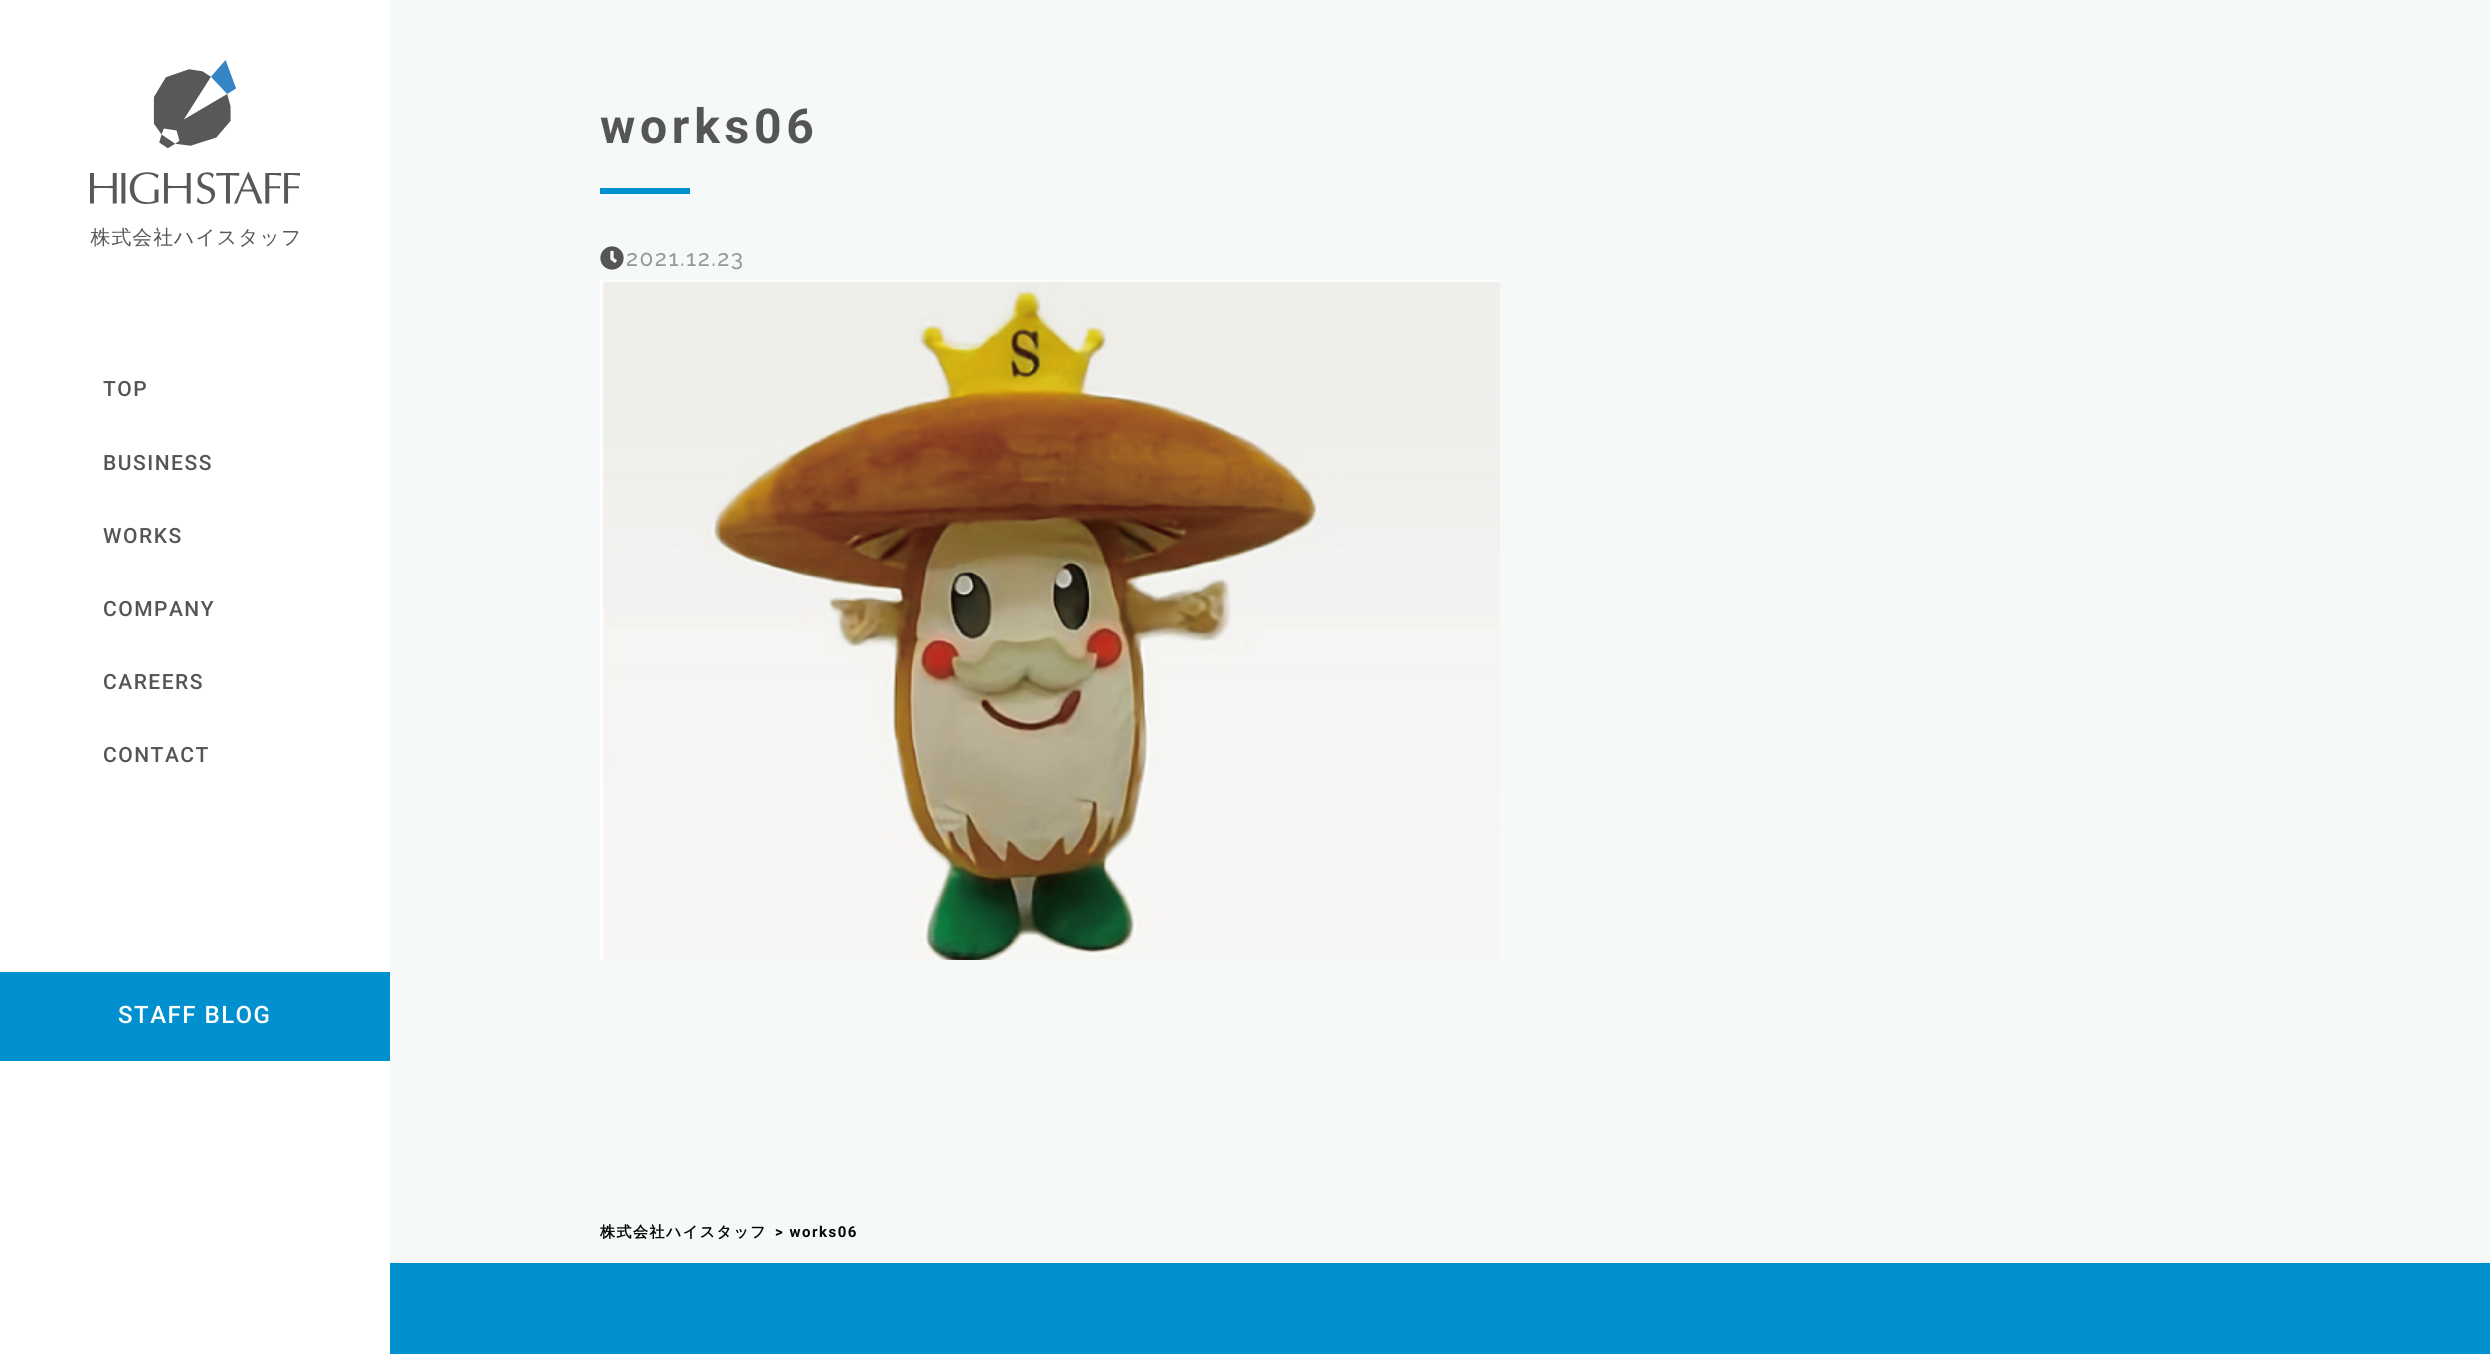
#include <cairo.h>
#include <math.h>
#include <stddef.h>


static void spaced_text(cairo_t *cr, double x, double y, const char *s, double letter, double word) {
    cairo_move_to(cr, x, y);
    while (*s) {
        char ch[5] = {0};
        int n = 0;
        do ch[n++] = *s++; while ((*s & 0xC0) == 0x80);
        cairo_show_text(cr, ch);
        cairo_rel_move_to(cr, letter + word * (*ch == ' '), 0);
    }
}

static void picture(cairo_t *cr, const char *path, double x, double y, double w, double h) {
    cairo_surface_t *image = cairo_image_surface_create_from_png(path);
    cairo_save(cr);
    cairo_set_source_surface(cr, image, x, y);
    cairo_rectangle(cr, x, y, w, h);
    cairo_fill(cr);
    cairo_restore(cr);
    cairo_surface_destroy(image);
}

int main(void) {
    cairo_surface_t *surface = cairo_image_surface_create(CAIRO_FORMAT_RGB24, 2490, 1354);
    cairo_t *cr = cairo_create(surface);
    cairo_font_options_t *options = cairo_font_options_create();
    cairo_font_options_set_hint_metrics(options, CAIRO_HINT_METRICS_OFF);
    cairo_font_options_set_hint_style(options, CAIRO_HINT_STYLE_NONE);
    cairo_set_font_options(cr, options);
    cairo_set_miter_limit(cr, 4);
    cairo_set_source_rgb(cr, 1, 1, 1);
    cairo_paint(cr);
    picture(cr, "img1.png", 90, 60, 210, 187);
    cairo_select_font_face(cr, "Roboto Medium", CAIRO_FONT_SLANT_NORMAL, CAIRO_FONT_WEIGHT_NORMAL);
    cairo_set_font_size(cr, 21);
    cairo_set_source_rgb(cr, 0.333, 0.333, 0.333);
    spaced_text(cr, 103, 396, "TOP", 1.5, 0);
    spaced_text(cr, 103, 470, "BUSINESS", 1.5, 0);
    spaced_text(cr, 103, 543, "WORKS", 1.5, 0);
    spaced_text(cr, 103, 616, "COMPANY", 1.5, 0);
    spaced_text(cr, 103, 689, "CAREERS", 1.5, 0);
    spaced_text(cr, 103, 762, "CONTACT", 1.5, 0);
    cairo_set_source_rgb(cr, 0, 0.565, 0.812);
    cairo_rectangle(cr, 0, 972, 390, 89);
    cairo_fill(cr);
    cairo_set_font_size(cr, 24);
    cairo_set_source_rgb(cr, 1, 1, 1);
    spaced_text(cr, 118, 1023, "STAFF BLOG", 1.5, 0);
    cairo_set_source_rgb(cr, 0.961, 0.973, 0.973);
    cairo_rectangle(cr, 390, 0, 2100, 1263);
    cairo_fill(cr);
    cairo_select_font_face(cr, "Roboto", CAIRO_FONT_SLANT_NORMAL, CAIRO_FONT_WEIGHT_BOLD);
    cairo_set_font_size(cr, 48);
    cairo_set_source_rgb(cr, 0.333, 0.333, 0.333);
    spaced_text(cr, 600, 143, "works06", 4.75, 0);
    cairo_set_source_rgb(cr, 0, 0.565, 0.812);
    cairo_rectangle(cr, 600, 188, 90, 6);
    cairo_fill(cr);
    picture(cr, "img2.png", 600, 246, 24, 24);
    cairo_select_font_face(cr, "Raleway Thin", CAIRO_FONT_SLANT_NORMAL, CAIRO_FONT_WEIGHT_NORMAL);
    cairo_set_font_size(cr, 22.5);
    cairo_set_source_rgb(cr, 0.6, 0.6, 0.6);
    spaced_text(cr, 626, 266, "2021.12.23", 1.5, 0);
    picture(cr, "img3.png", 600, 280, 900, 680);
    cairo_select_font_face(cr, "WenQuanYi Zen Hei", CAIRO_FONT_SLANT_NORMAL, CAIRO_FONT_WEIGHT_BOLD);
    cairo_set_font_size(cr, 15);
    cairo_set_source_rgb(cr, 0.02, 0.02, 0.02);
    spaced_text(cr, 600, 1237, "株式会社ハイスタッフ", 1.5, 0);
    cairo_select_font_face(cr, "Roboto", CAIRO_FONT_SLANT_NORMAL, CAIRO_FONT_WEIGHT_BOLD);
    spaced_text(cr, 775, 1237, "> works06", 1.5, 0);
    cairo_set_source_rgb(cr, 0, 0.565, 0.812);
    cairo_rectangle(cr, 390, 1263, 2100, 91);
    cairo_fill(cr);
    cairo_surface_write_to_png(surface, "page.png");
    cairo_font_options_destroy(options);
    cairo_destroy(cr);
    cairo_surface_destroy(surface);
    return 0;
}
